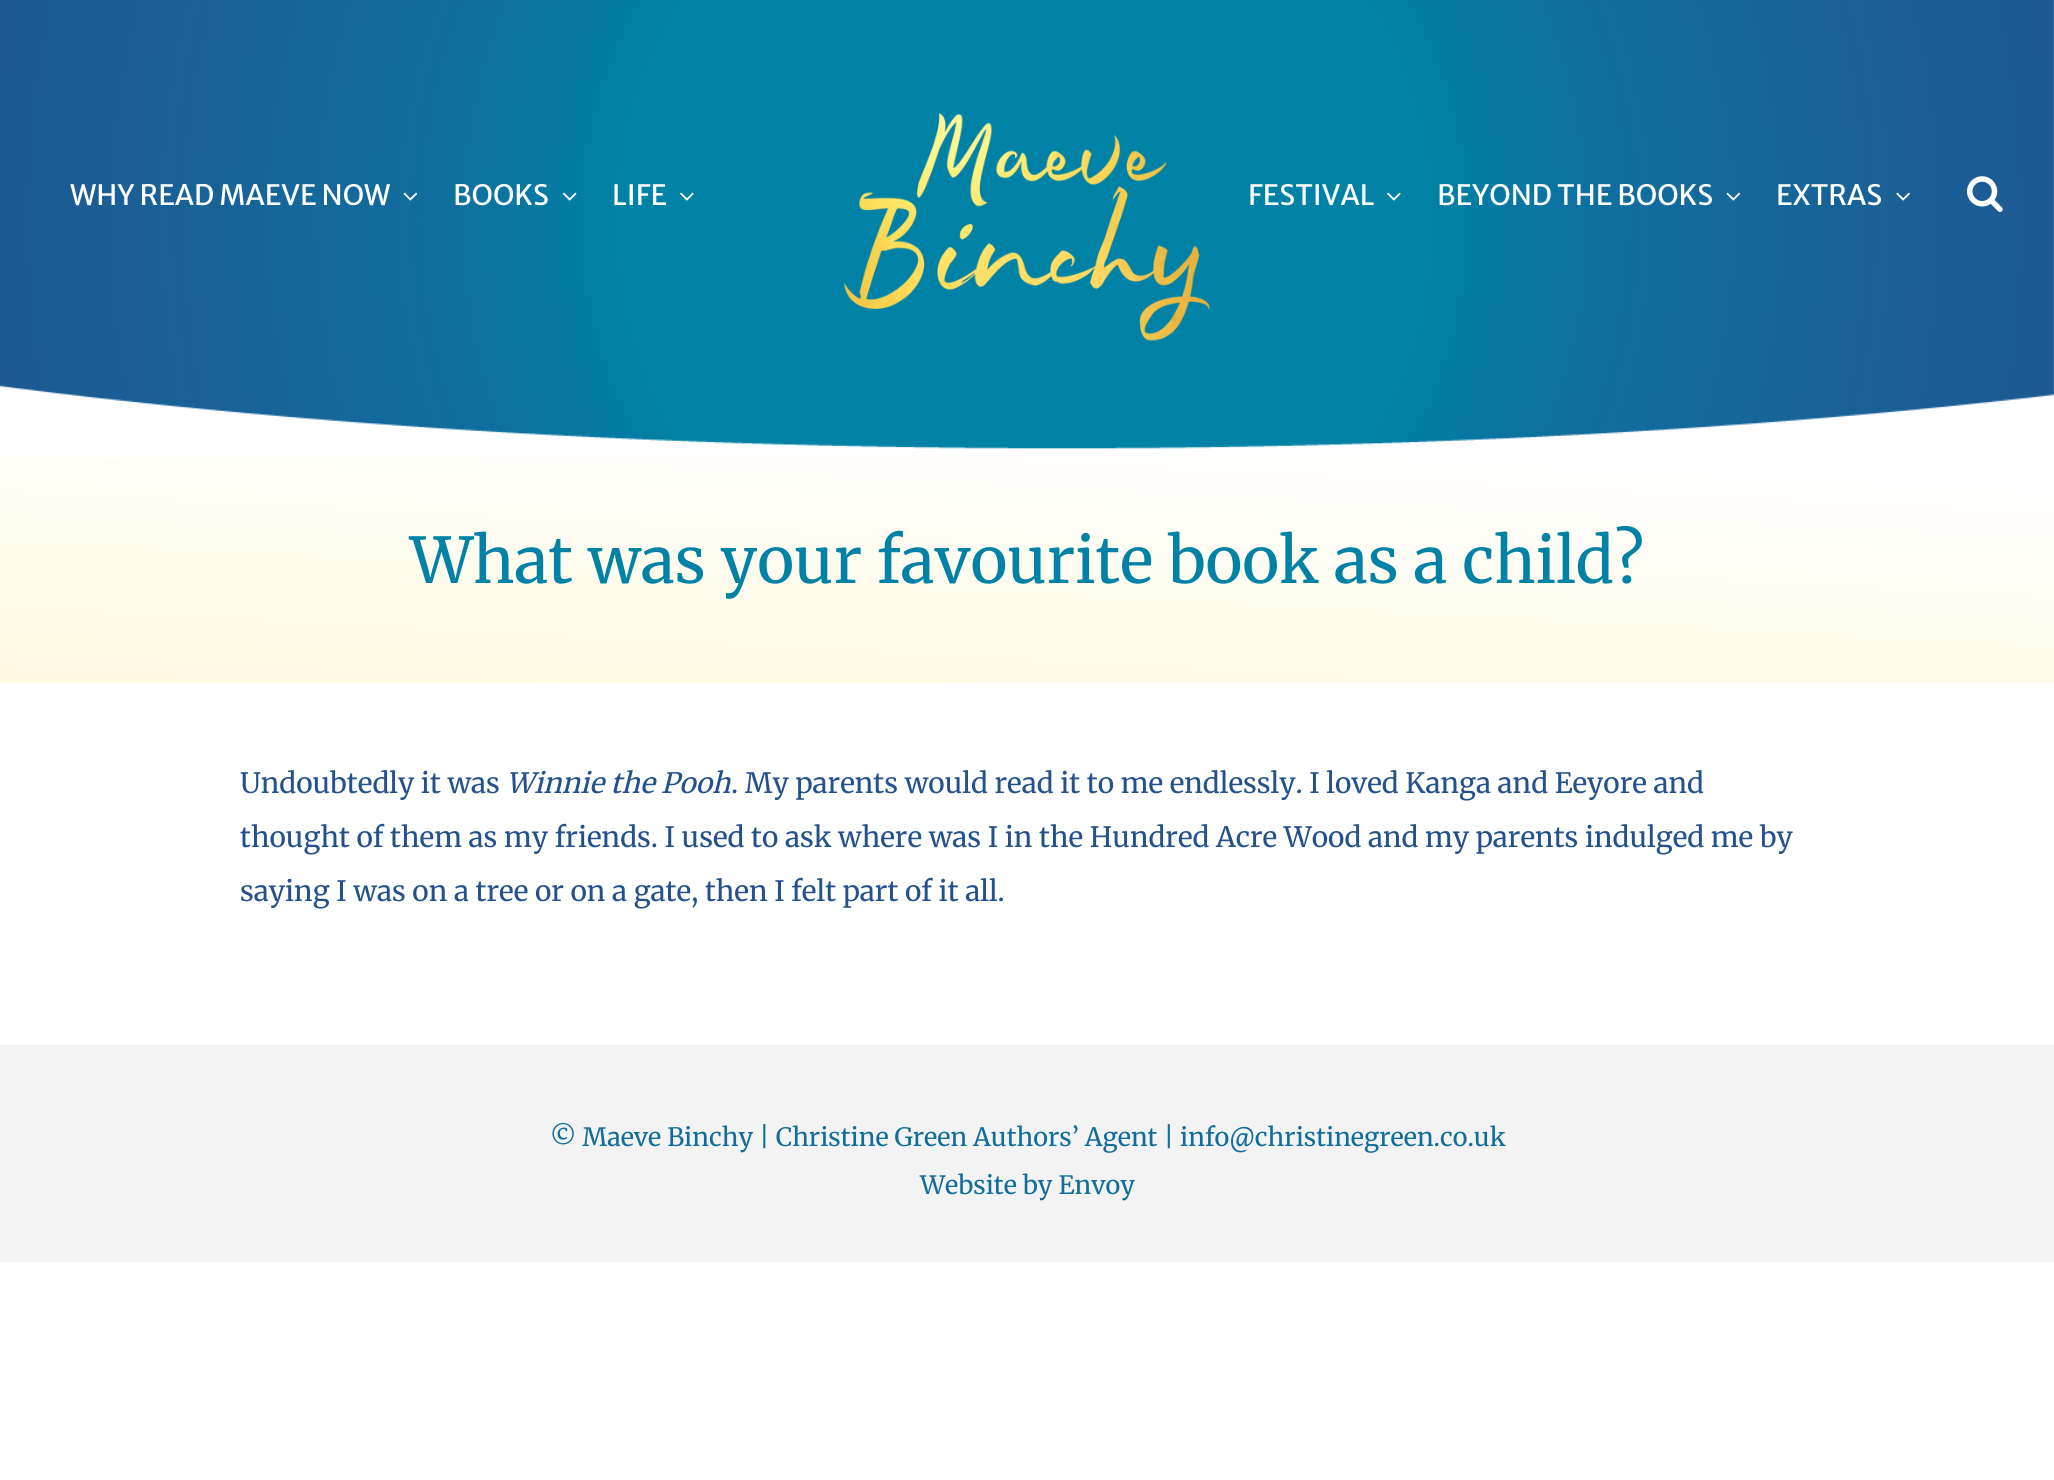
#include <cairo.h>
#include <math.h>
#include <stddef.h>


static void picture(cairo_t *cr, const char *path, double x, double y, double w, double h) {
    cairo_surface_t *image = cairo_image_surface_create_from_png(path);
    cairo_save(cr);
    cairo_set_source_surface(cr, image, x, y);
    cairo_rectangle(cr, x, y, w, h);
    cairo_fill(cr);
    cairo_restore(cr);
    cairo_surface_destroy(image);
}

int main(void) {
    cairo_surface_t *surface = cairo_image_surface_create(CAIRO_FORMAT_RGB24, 2054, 1480);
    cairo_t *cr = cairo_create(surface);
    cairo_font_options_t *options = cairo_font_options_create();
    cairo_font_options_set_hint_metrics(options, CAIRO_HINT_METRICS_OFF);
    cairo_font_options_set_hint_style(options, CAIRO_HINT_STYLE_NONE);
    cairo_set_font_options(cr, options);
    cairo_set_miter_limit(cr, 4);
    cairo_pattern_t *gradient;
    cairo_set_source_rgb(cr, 1, 1, 1);
    cairo_paint(cr);
    picture(cr, "img1.png", 0, 0, 2054, 449);
    cairo_select_font_face(cr, "Merriweather Sans", CAIRO_FONT_SLANT_NORMAL, CAIRO_FONT_WEIGHT_NORMAL);
    cairo_set_font_size(cr, 28);
    cairo_set_source_rgb(cr, 1, 1, 1);
    cairo_move_to(cr, 70, 205);
    cairo_show_text(cr, "WHY READ MAEVE NOW");
    picture(cr, "img2.png", 403, 192, 15, 9);
    cairo_move_to(cr, 453, 205);
    cairo_show_text(cr, "BOOKS");
    picture(cr, "img3.png", 562, 192, 15, 9);
    cairo_move_to(cr, 612, 205);
    cairo_show_text(cr, "LIFE");
    picture(cr, "img4.png", 680, 192, 14, 9);
    picture(cr, "img5.png", 843, 113, 368, 228);
    cairo_move_to(cr, 1248, 205);
    cairo_show_text(cr, "FESTIVAL");
    picture(cr, "img4.png", 1387, 192, 14, 9);
    cairo_move_to(cr, 1437, 205);
    cairo_show_text(cr, "BEYOND THE BOOKS");
    picture(cr, "img6.png", 1726, 192, 15, 9);
    cairo_move_to(cr, 1776, 205);
    cairo_show_text(cr, "EXTRAS");
    picture(cr, "img7.png", 1896, 192, 14, 9);
    picture(cr, "img8.png", 1967, 176, 36, 36);
    gradient = cairo_pattern_create_linear(1018, 736, 1036, 388);
    cairo_pattern_add_color_stop_rgba(gradient, 0, 1, 0.976, 0.875, 1);
    cairo_pattern_add_color_stop_rgba(gradient, 0.87, 1, 1, 1, 1);
    cairo_set_source(cr, gradient);
    cairo_pattern_destroy(gradient);
    cairo_rectangle(cr, 0, 457, 2054, 226);
    cairo_fill(cr);
    cairo_select_font_face(cr, "Merriweather Light", CAIRO_FONT_SLANT_NORMAL, CAIRO_FONT_WEIGHT_NORMAL);
    cairo_set_font_size(cr, 63);
    cairo_set_source_rgb(cr, 0, 0.51, 0.651);
    cairo_move_to(cr, 410, 583);
    cairo_show_text(cr, "What was your favourite book as a child?");
    cairo_set_font_size(cr, 28);
    cairo_set_source_rgb(cr, 0.137, 0.318, 0.553);
    cairo_move_to(cr, 240, 793);
    cairo_show_text(cr, "Undoubtedly it was");
    cairo_select_font_face(cr, "Merriweather Light", CAIRO_FONT_SLANT_ITALIC, CAIRO_FONT_WEIGHT_NORMAL);
    cairo_move_to(cr, 506, 793);
    cairo_show_text(cr, "Winnie the Pooh");
    cairo_select_font_face(cr, "Merriweather Light", CAIRO_FONT_SLANT_NORMAL, CAIRO_FONT_WEIGHT_NORMAL);
    cairo_move_to(cr, 731, 793);
    cairo_show_text(cr, ". My parents would read it to me endlessly. I loved Kanga and Eeyore and");
    cairo_move_to(cr, 240, 847);
    cairo_show_text(cr, "thought of them as my friends. I used to ask where was I in the Hundred Acre Wood and my parents indulged me by");
    cairo_move_to(cr, 240, 901);
    cairo_show_text(cr, "saying I was on a tree or on a gate, then I felt part of it all.");
    cairo_set_source_rgb(cr, 0.953, 0.953, 0.953);
    cairo_rectangle(cr, 0, 1045, 2054, 217);
    cairo_fill(cr);
    cairo_set_font_size(cr, 25.2);
    cairo_set_source_rgb(cr, 0.067, 0.427, 0.604);
    cairo_move_to(cr, 550, 1146);
    cairo_show_text(cr, "© Maeve Binchy | Christine Green Authors’ Agent | info@christinegreen.co.uk");
    cairo_move_to(cr, 920, 1194);
    cairo_show_text(cr, "Website by Envoy");
    cairo_surface_write_to_png(surface, "page.png");
    cairo_font_options_destroy(options);
    cairo_destroy(cr);
    cairo_surface_destroy(surface);
    return 0;
}
